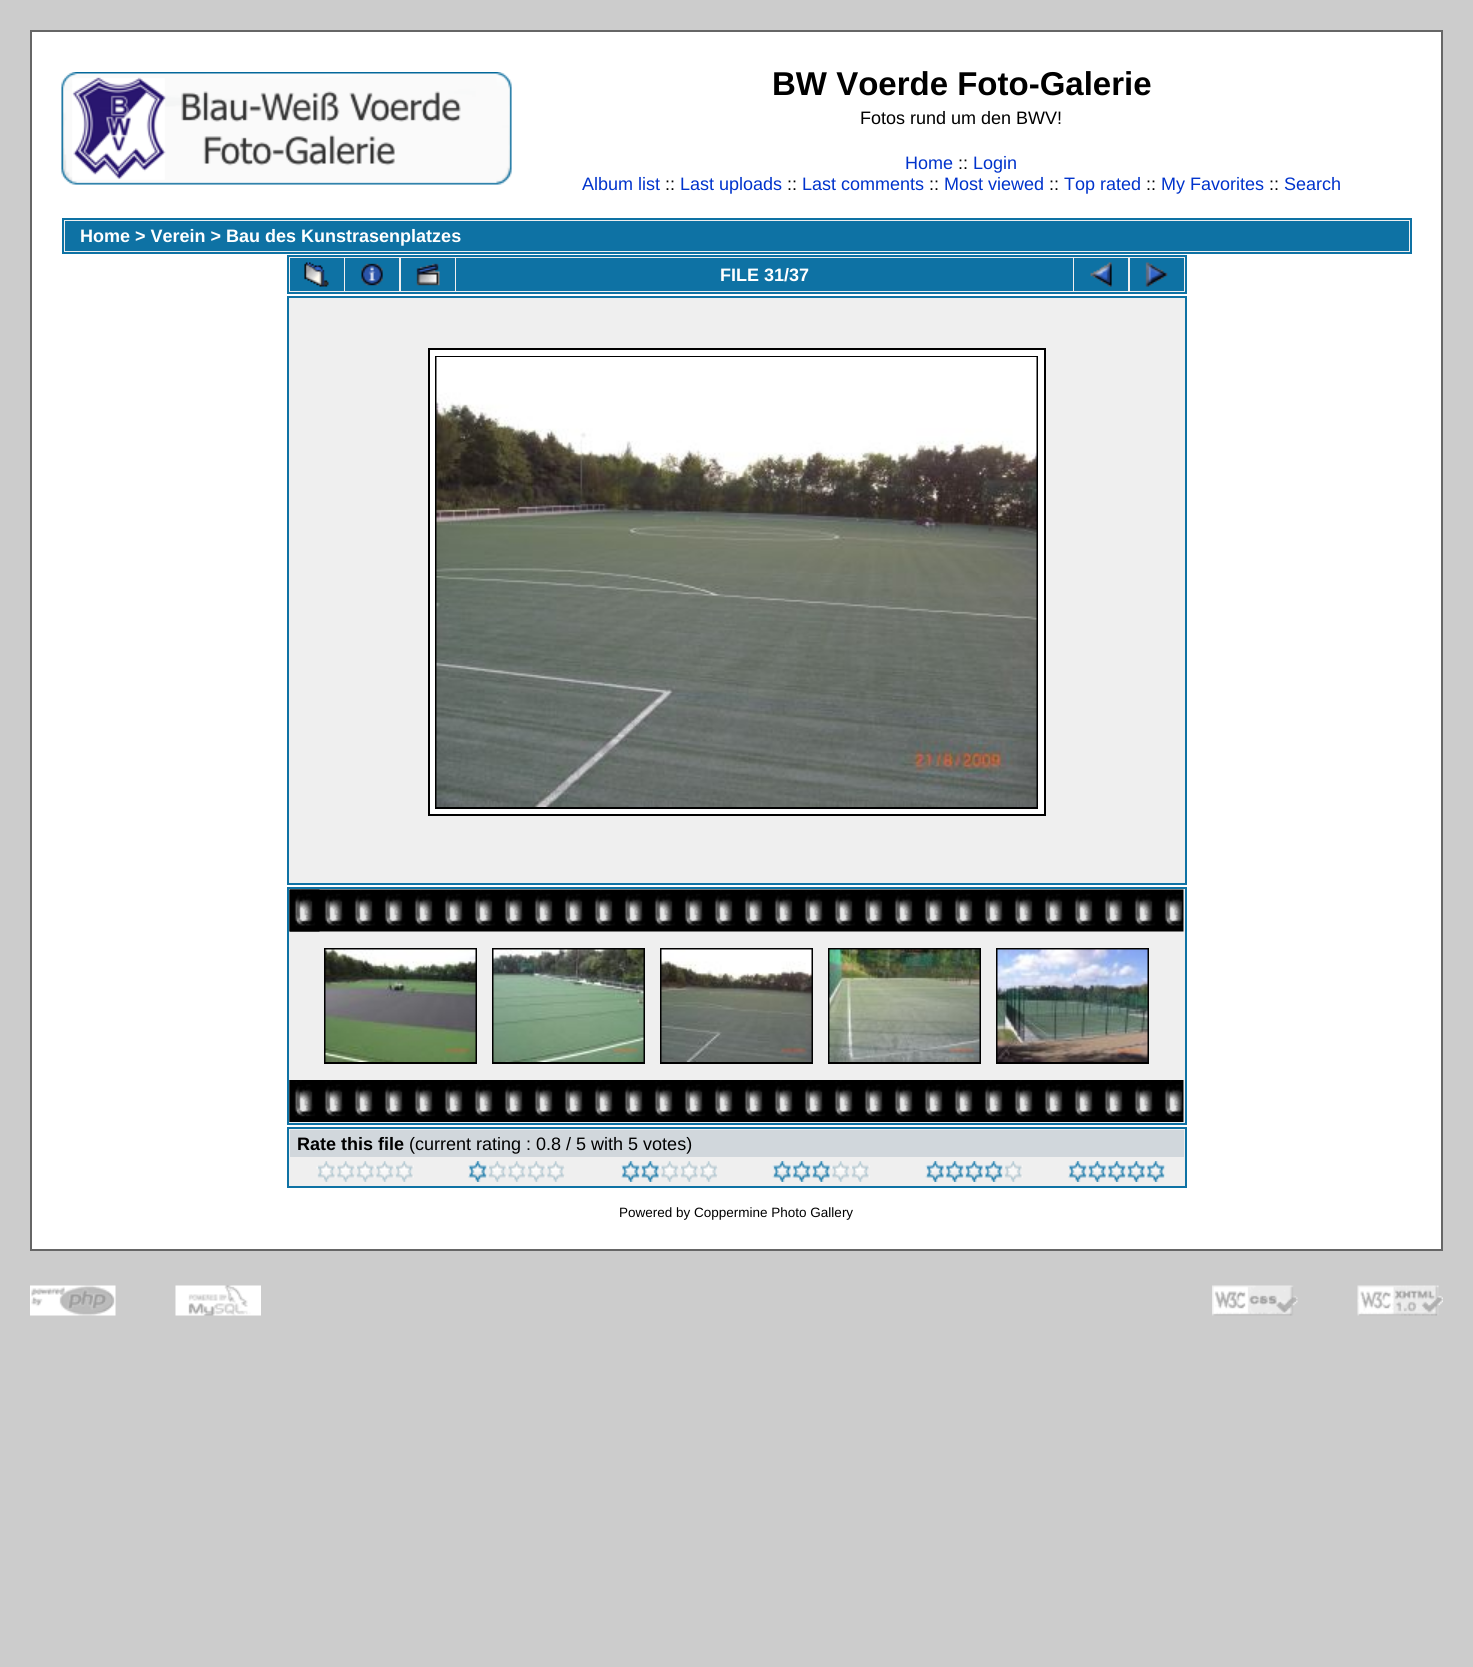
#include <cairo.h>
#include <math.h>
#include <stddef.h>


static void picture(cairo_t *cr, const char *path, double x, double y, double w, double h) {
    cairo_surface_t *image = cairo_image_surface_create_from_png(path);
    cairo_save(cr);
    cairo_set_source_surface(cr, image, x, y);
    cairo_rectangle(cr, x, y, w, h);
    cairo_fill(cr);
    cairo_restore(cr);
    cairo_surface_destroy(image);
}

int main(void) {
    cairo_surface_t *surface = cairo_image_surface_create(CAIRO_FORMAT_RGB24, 1473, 1667);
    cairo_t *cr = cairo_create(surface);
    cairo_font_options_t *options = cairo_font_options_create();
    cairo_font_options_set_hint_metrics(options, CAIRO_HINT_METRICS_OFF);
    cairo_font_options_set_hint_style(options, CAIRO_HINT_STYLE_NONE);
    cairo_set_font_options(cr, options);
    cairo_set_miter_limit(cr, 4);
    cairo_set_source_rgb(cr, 0.8, 0.8, 0.8);
    cairo_paint(cr);
    cairo_set_source_rgb(cr, 1, 1, 1);
    cairo_rectangle(cr, 31, 31, 1411, 1219);
    cairo_fill_preserve(cr);
    cairo_set_source_rgb(cr, 0.4, 0.4, 0.4);
    cairo_stroke(cr);
    picture(cr, "img1.png", 61, 72, 451, 113);
    cairo_select_font_face(cr, "Liberation Sans", CAIRO_FONT_SLANT_NORMAL, CAIRO_FONT_WEIGHT_BOLD);
    cairo_set_font_size(cr, 33);
    cairo_set_source_rgb(cr, 0, 0, 0);
    cairo_move_to(cr, 772, 95);
    cairo_show_text(cr, "BW Voerde Foto-Galerie");
    cairo_select_font_face(cr, "Liberation Sans", CAIRO_FONT_SLANT_NORMAL, CAIRO_FONT_WEIGHT_NORMAL);
    cairo_set_font_size(cr, 18);
    cairo_move_to(cr, 860, 124);
    cairo_show_text(cr, "Fotos rund um den BWV!");
    cairo_set_source_rgb(cr, 0, 0.2, 0.8);
    cairo_move_to(cr, 905, 169);
    cairo_show_text(cr, "Home");
    cairo_set_source_rgb(cr, 0, 0, 0);
    cairo_move_to(cr, 958, 169);
    cairo_show_text(cr, "::");
    cairo_set_source_rgb(cr, 0, 0.2, 0.8);
    cairo_move_to(cr, 973, 169);
    cairo_show_text(cr, "Login");
    cairo_move_to(cr, 582, 190);
    cairo_show_text(cr, "Album list");
    cairo_set_source_rgb(cr, 0, 0, 0);
    cairo_move_to(cr, 665, 190);
    cairo_show_text(cr, "::");
    cairo_set_source_rgb(cr, 0, 0.2, 0.8);
    cairo_move_to(cr, 680, 190);
    cairo_show_text(cr, "Last uploads");
    cairo_set_source_rgb(cr, 0, 0, 0);
    cairo_move_to(cr, 787, 190);
    cairo_show_text(cr, "::");
    cairo_set_source_rgb(cr, 0, 0.2, 0.8);
    cairo_move_to(cr, 802, 190);
    cairo_show_text(cr, "Last comments");
    cairo_set_source_rgb(cr, 0, 0, 0);
    cairo_move_to(cr, 929, 190);
    cairo_show_text(cr, "::");
    cairo_set_source_rgb(cr, 0, 0.2, 0.8);
    cairo_move_to(cr, 944, 190);
    cairo_show_text(cr, "Most viewed");
    cairo_set_source_rgb(cr, 0, 0, 0);
    cairo_move_to(cr, 1049, 190);
    cairo_show_text(cr, "::");
    cairo_set_source_rgb(cr, 0, 0.2, 0.8);
    cairo_move_to(cr, 1064, 190);
    cairo_show_text(cr, "Top rated");
    cairo_set_source_rgb(cr, 0, 0, 0);
    cairo_move_to(cr, 1146, 190);
    cairo_show_text(cr, "::");
    cairo_set_source_rgb(cr, 0, 0.2, 0.8);
    cairo_move_to(cr, 1161, 190);
    cairo_show_text(cr, "My Favorites");
    cairo_set_source_rgb(cr, 0, 0, 0);
    cairo_move_to(cr, 1269, 190);
    cairo_show_text(cr, "::");
    cairo_set_source_rgb(cr, 0, 0.2, 0.8);
    cairo_move_to(cr, 1284, 190);
    cairo_show_text(cr, "Search");
    cairo_set_source_rgb(cr, 0.937, 0.937, 0.937);
    cairo_rectangle(cr, 63, 219, 1348, 34);
    cairo_fill_preserve(cr);
    cairo_set_source_rgb(cr, 0.055, 0.447, 0.643);
    cairo_stroke(cr);
    cairo_rectangle(cr, 65, 221, 1344, 30);
    cairo_fill(cr);
    cairo_select_font_face(cr, "Liberation Sans", CAIRO_FONT_SLANT_NORMAL, CAIRO_FONT_WEIGHT_BOLD);
    cairo_set_source_rgb(cr, 1, 1, 1);
    cairo_move_to(cr, 80, 242);
    cairo_show_text(cr, "Home > Verein > Bau des Kunstrasenplatzes");
    cairo_set_source_rgb(cr, 0.937, 0.937, 0.937);
    cairo_rectangle(cr, 288, 256, 898, 37);
    cairo_fill_preserve(cr);
    cairo_set_source_rgb(cr, 0.055, 0.447, 0.643);
    cairo_stroke(cr);
    cairo_rectangle(cr, 290, 258, 54, 33);
    cairo_fill(cr);
    picture(cr, "img2.png", 304, 262, 25, 25);
    cairo_rectangle(cr, 345, 258, 54, 33);
    cairo_fill(cr);
    picture(cr, "img3.png", 361, 263, 22, 23);
    cairo_rectangle(cr, 401, 258, 54, 33);
    cairo_fill(cr);
    picture(cr, "img4.png", 416, 263, 24, 23);
    cairo_rectangle(cr, 456, 258, 617, 33);
    cairo_fill(cr);
    cairo_set_source_rgb(cr, 1, 1, 1);
    cairo_move_to(cr, 720, 281);
    cairo_show_text(cr, "FILE 31/37");
    cairo_set_source_rgb(cr, 0.055, 0.447, 0.643);
    cairo_rectangle(cr, 1074, 258, 54, 33);
    cairo_fill(cr);
    picture(cr, "img5.png", 1090, 262, 22, 25);
    cairo_rectangle(cr, 1130, 258, 54, 33);
    cairo_fill(cr);
    picture(cr, "img6.png", 1145, 262, 23, 25);
    cairo_set_source_rgb(cr, 0.937, 0.937, 0.937);
    cairo_rectangle(cr, 288, 297, 898, 587);
    cairo_fill_preserve(cr);
    cairo_set_source_rgb(cr, 0.055, 0.447, 0.643);
    cairo_stroke(cr);
    cairo_set_source_rgb(cr, 1, 1, 1);
    cairo_rectangle(cr, 429, 349, 616, 466);
    cairo_fill_preserve(cr);
    cairo_set_source_rgb(cr, 0, 0, 0);
    cairo_stroke(cr);
    cairo_rectangle(cr, 436, 357, 601, 451);
    cairo_stroke(cr);
    picture(cr, "img7.png", 436, 357, 601, 450);
    cairo_set_source_rgb(cr, 0.937, 0.937, 0.937);
    cairo_rectangle(cr, 288, 888, 898, 236);
    cairo_fill_preserve(cr);
    cairo_set_source_rgb(cr, 0.055, 0.447, 0.643);
    cairo_stroke(cr);
    picture(cr, "img8.png", 289, 889, 895, 43);
    picture(cr, "img9.png", 289, 889, 31, 43);
    cairo_rectangle(cr, 325, 949, 151, 114);
    cairo_set_source_rgb(cr, 0, 0, 0);
    cairo_stroke(cr);
    picture(cr, "img10.png", 325, 949, 151, 113);
    cairo_rectangle(cr, 493, 949, 151, 114);
    cairo_stroke(cr);
    picture(cr, "img11.png", 493, 949, 151, 113);
    cairo_rectangle(cr, 661, 949, 151, 114);
    cairo_stroke(cr);
    picture(cr, "img12.png", 661, 949, 151, 113);
    cairo_rectangle(cr, 829, 949, 151, 114);
    cairo_stroke(cr);
    picture(cr, "img13.png", 829, 949, 151, 113);
    cairo_rectangle(cr, 997, 949, 151, 114);
    cairo_stroke(cr);
    picture(cr, "img14.png", 997, 949, 151, 113);
    picture(cr, "img15.png", 289, 1080, 895, 42);
    picture(cr, "img16.png", 289, 1080, 19, 42);
    cairo_set_source_rgb(cr, 0.937, 0.937, 0.937);
    cairo_rectangle(cr, 288, 1128, 898, 59);
    cairo_fill_preserve(cr);
    cairo_set_source_rgb(cr, 0.055, 0.447, 0.643);
    cairo_stroke(cr);
    cairo_set_source_rgb(cr, 0.82, 0.843, 0.863);
    cairo_rectangle(cr, 290, 1130, 894, 27);
    cairo_fill(cr);
    cairo_set_source_rgb(cr, 0, 0, 0);
    cairo_move_to(cr, 297, 1150);
    cairo_show_text(cr, "Rate this file");
    cairo_select_font_face(cr, "Liberation Sans", CAIRO_FONT_SLANT_NORMAL, CAIRO_FONT_WEIGHT_NORMAL);
    cairo_move_to(cr, 409, 1150);
    cairo_show_text(cr, "(current rating : 0.8 / 5 with 5 votes)");
    picture(cr, "img17.png", 316, 1161, 98, 21);
    picture(cr, "img18.png", 468, 1161, 97, 21);
    picture(cr, "img19.png", 621, 1161, 97, 21);
    picture(cr, "img20.png", 772, 1161, 98, 21);
    picture(cr, "img21.png", 925, 1161, 98, 21);
    picture(cr, "img22.png", 1068, 1161, 98, 21);
    cairo_set_font_size(cr, 13.5);
    cairo_move_to(cr, 619, 1217);
    cairo_show_text(cr, "Powered by Coppermine Photo Gallery");
    picture(cr, "img23.png", 30, 1285, 86, 31);
    picture(cr, "img24.png", 175, 1285, 86, 31);
    picture(cr, "img25.png", 1212, 1285, 86, 31);
    picture(cr, "img26.png", 1357, 1285, 86, 31);
    cairo_surface_write_to_png(surface, "page.png");
    cairo_font_options_destroy(options);
    cairo_destroy(cr);
    cairo_surface_destroy(surface);
    return 0;
}
